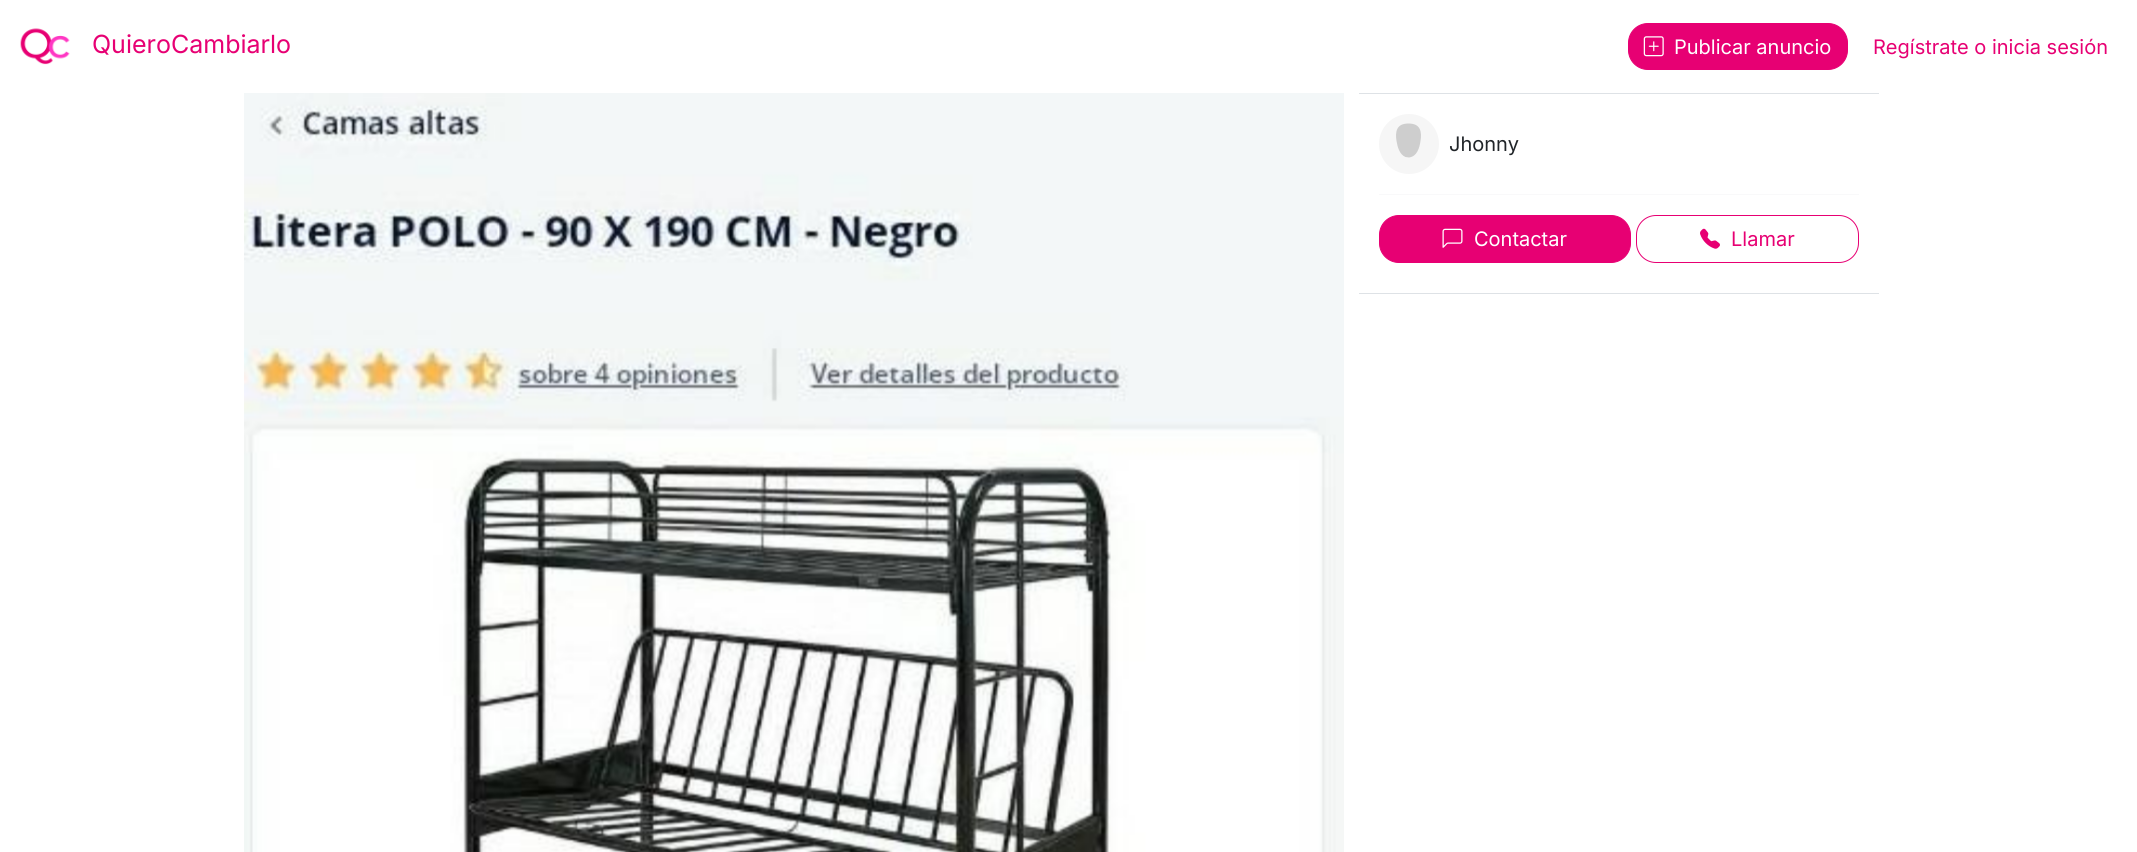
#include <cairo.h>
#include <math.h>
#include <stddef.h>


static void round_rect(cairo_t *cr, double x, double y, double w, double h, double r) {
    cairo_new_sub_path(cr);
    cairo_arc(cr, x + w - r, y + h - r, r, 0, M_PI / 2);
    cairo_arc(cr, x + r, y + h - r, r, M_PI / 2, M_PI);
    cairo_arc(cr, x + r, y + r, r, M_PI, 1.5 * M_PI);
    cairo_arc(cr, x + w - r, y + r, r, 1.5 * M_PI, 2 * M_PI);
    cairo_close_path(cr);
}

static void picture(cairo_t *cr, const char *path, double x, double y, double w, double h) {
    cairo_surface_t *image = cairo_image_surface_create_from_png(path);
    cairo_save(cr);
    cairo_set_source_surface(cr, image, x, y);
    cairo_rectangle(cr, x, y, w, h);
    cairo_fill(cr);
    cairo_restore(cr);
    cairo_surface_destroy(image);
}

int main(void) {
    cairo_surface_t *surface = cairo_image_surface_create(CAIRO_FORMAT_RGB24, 2137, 852);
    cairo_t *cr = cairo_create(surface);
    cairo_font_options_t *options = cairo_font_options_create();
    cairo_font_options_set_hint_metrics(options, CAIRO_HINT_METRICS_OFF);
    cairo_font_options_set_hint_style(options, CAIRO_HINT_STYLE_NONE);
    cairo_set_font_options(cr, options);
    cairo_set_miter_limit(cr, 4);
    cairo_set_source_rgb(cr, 1, 1, 1);
    cairo_paint(cr);
    picture(cr, "img1.png", 20, 28, 50, 37);
    cairo_select_font_face(cr, "Inter", CAIRO_FONT_SLANT_NORMAL, CAIRO_FONT_WEIGHT_NORMAL);
    cairo_set_font_size(cr, 25);
    cairo_set_source_rgb(cr, 0.906, 0, 0.451);
    cairo_move_to(cr, 92, 53);
    cairo_show_text(cr, "QuieroCambiarlo");
    round_rect(cr, 1628.5, 23.5, 219, 46, 19.5);
    cairo_fill_preserve(cr);
    cairo_set_line_width(cr, 1);
    cairo_stroke(cr);
    picture(cr, "img2.png", 1643, 36, 21, 21);
    cairo_set_font_size(cr, 20);
    cairo_set_source_rgb(cr, 1, 1, 1);
    cairo_move_to(cr, 1674, 54);
    cairo_show_text(cr, "Publicar anuncio");
    cairo_set_source_rgb(cr, 0.906, 0, 0.451);
    cairo_move_to(cr, 1873, 54);
    cairo_show_text(cr, "Regístrate o inicia sesión");
    picture(cr, "img3.png", 244, 93, 1100, 759);
    cairo_set_source_rgb(cr, 0.871, 0.886, 0.902);
    cairo_rectangle(cr, 1359, 93, 520, 1);
    cairo_fill(cr);
    cairo_rectangle(cr, 1359, 293, 520, 1);
    cairo_fill(cr);
    cairo_set_source_rgb(cr, 0.961, 0.961, 0.961);
    cairo_arc(cr, 1409, 144, 30, 0, 2 * M_PI);
    cairo_fill(cr);
    cairo_set_source_rgb(cr, 0.808, 0.808, 0.808);
    cairo_new_path(cr);
    cairo_move_to(cr, 1408.5, 123.5);
    cairo_curve_to(cr, 1420.5, 123.5, 1422, 131.5, 1420.5, 141);
    cairo_curve_to(cr, 1419.5, 148, 1417, 156.5, 1409, 157.5);
    cairo_line_to(cr, 1405.5, 157);
    cairo_curve_to(cr, 1399.5, 154.5, 1397.5, 147, 1396.5, 141);
    cairo_curve_to(cr, 1395, 131.5, 1396.5, 123.5, 1408.5, 123.5);
    cairo_close_path(cr);
    cairo_fill(cr);
    cairo_set_source_rgb(cr, 0.129, 0.145, 0.161);
    cairo_move_to(cr, 1449, 151);
    cairo_show_text(cr, "Jhonny");
    cairo_set_source_rgb(cr, 0.973, 0.976, 0.98);
    cairo_rectangle(cr, 1379, 194, 480, 1);
    cairo_fill(cr);
    cairo_set_source_rgb(cr, 0.906, 0, 0.451);
    round_rect(cr, 1379.5, 215.5, 251, 47, 19.5);
    cairo_fill_preserve(cr);
    cairo_stroke(cr);
    picture(cr, "img4.png", 1442, 228, 21, 20);
    cairo_set_source_rgb(cr, 1, 1, 1);
    cairo_move_to(cr, 1474, 246);
    cairo_show_text(cr, "Contactar");
    round_rect(cr, 1636.5, 215.5, 222, 47, 19.5);
    cairo_set_source_rgb(cr, 0.906, 0, 0.451);
    cairo_stroke(cr);
    picture(cr, "img5.png", 1700, 228, 20, 21);
    cairo_move_to(cr, 1731, 246);
    cairo_show_text(cr, "Llamar");
    cairo_surface_write_to_png(surface, "page.png");
    cairo_font_options_destroy(options);
    cairo_destroy(cr);
    cairo_surface_destroy(surface);
    return 0;
}
